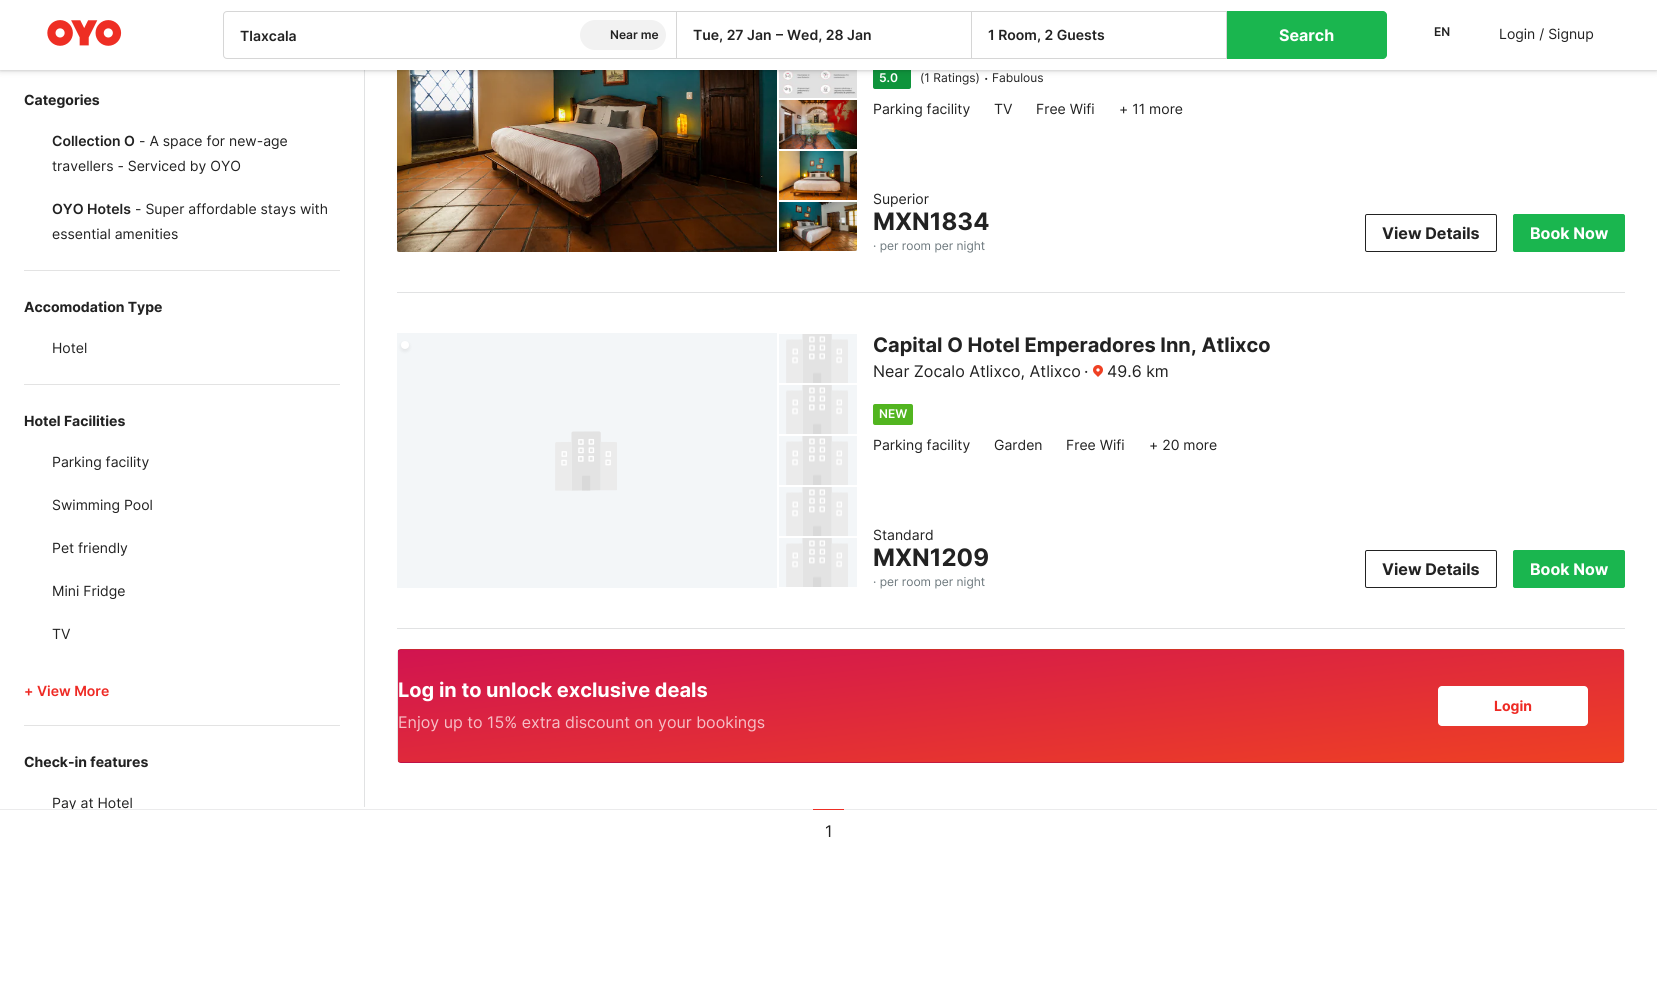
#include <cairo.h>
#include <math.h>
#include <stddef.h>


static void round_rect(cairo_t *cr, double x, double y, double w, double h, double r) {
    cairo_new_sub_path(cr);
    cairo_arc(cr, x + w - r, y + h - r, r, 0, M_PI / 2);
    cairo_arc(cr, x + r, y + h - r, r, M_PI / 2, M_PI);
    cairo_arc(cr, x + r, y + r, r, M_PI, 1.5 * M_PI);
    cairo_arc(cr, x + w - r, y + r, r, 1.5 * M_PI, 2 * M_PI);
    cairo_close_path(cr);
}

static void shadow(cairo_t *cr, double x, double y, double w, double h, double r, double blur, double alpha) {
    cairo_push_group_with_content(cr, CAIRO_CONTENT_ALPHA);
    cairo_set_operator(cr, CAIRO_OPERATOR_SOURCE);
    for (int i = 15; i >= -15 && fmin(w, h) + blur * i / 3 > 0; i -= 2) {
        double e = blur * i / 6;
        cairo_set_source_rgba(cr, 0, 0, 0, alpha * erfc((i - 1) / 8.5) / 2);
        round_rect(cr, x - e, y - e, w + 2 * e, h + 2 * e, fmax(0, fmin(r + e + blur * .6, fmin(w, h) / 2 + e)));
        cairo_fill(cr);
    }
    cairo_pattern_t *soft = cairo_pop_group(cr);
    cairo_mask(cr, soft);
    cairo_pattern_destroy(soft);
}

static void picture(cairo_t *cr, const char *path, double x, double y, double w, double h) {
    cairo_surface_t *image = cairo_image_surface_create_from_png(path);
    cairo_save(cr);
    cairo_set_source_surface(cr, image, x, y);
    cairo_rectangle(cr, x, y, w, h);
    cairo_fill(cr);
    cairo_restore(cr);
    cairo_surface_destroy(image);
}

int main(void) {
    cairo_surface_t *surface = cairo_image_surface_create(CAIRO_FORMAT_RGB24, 1657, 989);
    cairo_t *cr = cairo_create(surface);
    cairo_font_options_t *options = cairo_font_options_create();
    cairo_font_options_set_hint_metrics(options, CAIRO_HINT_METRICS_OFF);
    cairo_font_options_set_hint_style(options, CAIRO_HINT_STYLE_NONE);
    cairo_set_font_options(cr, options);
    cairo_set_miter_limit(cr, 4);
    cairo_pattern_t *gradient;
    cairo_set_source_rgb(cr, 1, 1, 1);
    cairo_paint(cr);
    cairo_set_source_rgb(cr, 0.882, 0.886, 0.89);
    cairo_rectangle(cr, 364, 70, 1, 737);
    cairo_fill(cr);
    cairo_set_source_rgb(cr, 0.953, 0.961, 0.969);
    cairo_rectangle(cr, 397, 250, 2, 2);
    cairo_fill(cr);
    picture(cr, "img2.png", 397, 70, 380, 182);
    picture(cr, "img3.png", 779, 70, 78, 28);
    cairo_set_source_rgb(cr, 0.059, 0.58, 0.235);
    round_rect(cr, 873, 68, 38, 21, 2);
    cairo_fill(cr);
    cairo_set_source_rgb(cr, 0, 0, 0);
    shadow(cr, 0, 1, 1657, 70, 0, 1, 0.1);
    shadow(cr, 0, 2, 1657, 70, 0, 3, 0.1);
    cairo_set_source_rgb(cr, 1, 1, 1);
    cairo_rectangle(cr, 0, 0, 1657, 70);
    cairo_fill(cr);
    picture(cr, "img1.png", 47, 20, 75, 26);
    cairo_new_path(cr);
    cairo_move_to(cr, 227, 11.5);
    cairo_line_to(cr, 676.5, 11.5);
    cairo_line_to(cr, 676.5, 58.5);
    cairo_line_to(cr, 227, 58.5);
    cairo_curve_to(cr, 225, 58.5, 223.5, 57, 223.5, 55);
    cairo_line_to(cr, 223.5, 15);
    cairo_curve_to(cr, 223.5, 13, 225, 11.5, 227, 11.5);
    cairo_close_path(cr);
    cairo_set_source_rgb(cr, 0.839, 0.839, 0.839);
    cairo_set_line_width(cr, 1);
    cairo_stroke(cr);
    cairo_select_font_face(cr, "Inter SemiBold", CAIRO_FONT_SLANT_NORMAL, CAIRO_FONT_WEIGHT_NORMAL);
    cairo_set_font_size(cr, 14);
    cairo_set_source_rgb(cr, 0.133, 0.133, 0.133);
    cairo_move_to(cr, 240, 41);
    cairo_show_text(cr, "Tlaxcala");
    cairo_set_source_rgb(cr, 0.949, 0.949, 0.949);
    round_rect(cr, 580, 20, 86, 30, 15);
    cairo_fill(cr);
    cairo_set_font_size(cr, 12);
    cairo_set_source_rgb(cr, 0.133, 0.133, 0.133);
    cairo_move_to(cr, 610, 39);
    cairo_show_text(cr, "Near me");
    cairo_set_source_rgb(cr, 0.839, 0.839, 0.839);
    cairo_rectangle(cr, 677, 11, 294, 1);
    cairo_fill(cr);
    cairo_rectangle(cr, 677, 58, 294, 1);
    cairo_fill(cr);
    cairo_set_font_size(cr, 14);
    cairo_set_source_rgb(cr, 0.133, 0.133, 0.133);
    cairo_move_to(cr, 693, 40);
    cairo_show_text(cr, "Tue, 27 Jan");
    cairo_move_to(cr, 776, 39);
    cairo_show_text(cr, "–");
    cairo_move_to(cr, 787, 40);
    cairo_show_text(cr, "Wed, 28 Jan");
    cairo_rectangle(cr, 971.5, 11.5, 255, 47);
    cairo_set_source_rgb(cr, 0.839, 0.839, 0.839);
    cairo_stroke(cr);
    cairo_set_source_rgb(cr, 0.133, 0.133, 0.133);
    cairo_move_to(cr, 988, 40);
    cairo_show_text(cr, "1 Room, 2 Guests");
    cairo_set_source_rgb(cr, 0.102, 0.714, 0.31);
    cairo_new_path(cr);
    cairo_move_to(cr, 1227, 11);
    cairo_line_to(cr, 1383, 11);
    cairo_curve_to(cr, 1385, 11, 1387, 13, 1387, 15);
    cairo_line_to(cr, 1387, 55);
    cairo_curve_to(cr, 1387, 57, 1385, 59, 1383, 59);
    cairo_line_to(cr, 1227, 59);
    cairo_close_path(cr);
    cairo_fill(cr);
    cairo_select_font_face(cr, "Inter", CAIRO_FONT_SLANT_NORMAL, CAIRO_FONT_WEIGHT_BOLD);
    cairo_set_font_size(cr, 16);
    cairo_set_source_rgb(cr, 1, 1, 1);
    cairo_move_to(cr, 1279, 41);
    cairo_show_text(cr, "Search");
    cairo_select_font_face(cr, "Inter SemiBold", CAIRO_FONT_SLANT_NORMAL, CAIRO_FONT_WEIGHT_NORMAL);
    cairo_set_font_size(cr, 12);
    cairo_set_source_rgb(cr, 0.133, 0.133, 0.133);
    cairo_move_to(cr, 1434, 36);
    cairo_show_text(cr, "EN");
    cairo_select_font_face(cr, "Inter", CAIRO_FONT_SLANT_NORMAL, CAIRO_FONT_WEIGHT_NORMAL);
    cairo_set_font_size(cr, 14);
    cairo_move_to(cr, 1499, 39);
    cairo_show_text(cr, "Login / Signup");
    cairo_set_source_rgb(cr, 0.89, 0.89, 0.89);
    cairo_rectangle(cr, 24, 270, 316, 1);
    cairo_fill(cr);
    cairo_select_font_face(cr, "Inter", CAIRO_FONT_SLANT_NORMAL, CAIRO_FONT_WEIGHT_BOLD);
    cairo_set_source_rgb(cr, 0.133, 0.133, 0.133);
    cairo_move_to(cr, 24, 105);
    cairo_show_text(cr, "Categories");
    cairo_select_font_face(cr, "Inter SemiBold", CAIRO_FONT_SLANT_NORMAL, CAIRO_FONT_WEIGHT_NORMAL);
    cairo_move_to(cr, 52, 146);
    cairo_show_text(cr, "Collection O");
    cairo_select_font_face(cr, "Inter", CAIRO_FONT_SLANT_NORMAL, CAIRO_FONT_WEIGHT_NORMAL);
    cairo_move_to(cr, 139, 146);
    cairo_show_text(cr, "- A space for new-age");
    cairo_move_to(cr, 52, 171);
    cairo_show_text(cr, "travellers - Serviced by OYO");
    cairo_select_font_face(cr, "Inter SemiBold", CAIRO_FONT_SLANT_NORMAL, CAIRO_FONT_WEIGHT_NORMAL);
    cairo_move_to(cr, 52, 214);
    cairo_show_text(cr, "OYO Hotels");
    cairo_select_font_face(cr, "Inter", CAIRO_FONT_SLANT_NORMAL, CAIRO_FONT_WEIGHT_NORMAL);
    cairo_move_to(cr, 135, 214);
    cairo_show_text(cr, "- Super affordable stays with");
    cairo_move_to(cr, 52, 239);
    cairo_show_text(cr, "essential amenities");
    cairo_set_source_rgb(cr, 0.89, 0.89, 0.89);
    cairo_rectangle(cr, 24, 384, 316, 1);
    cairo_fill(cr);
    cairo_select_font_face(cr, "Inter", CAIRO_FONT_SLANT_NORMAL, CAIRO_FONT_WEIGHT_BOLD);
    cairo_set_source_rgb(cr, 0.133, 0.133, 0.133);
    cairo_move_to(cr, 24, 312);
    cairo_show_text(cr, "Accomodation Type");
    cairo_select_font_face(cr, "Inter", CAIRO_FONT_SLANT_NORMAL, CAIRO_FONT_WEIGHT_NORMAL);
    cairo_move_to(cr, 52, 353);
    cairo_show_text(cr, "Hotel");
    cairo_set_source_rgb(cr, 0.89, 0.89, 0.89);
    cairo_rectangle(cr, 24, 725, 316, 1);
    cairo_fill(cr);
    cairo_select_font_face(cr, "Inter", CAIRO_FONT_SLANT_NORMAL, CAIRO_FONT_WEIGHT_BOLD);
    cairo_set_source_rgb(cr, 0.133, 0.133, 0.133);
    cairo_move_to(cr, 24, 426);
    cairo_show_text(cr, "Hotel Facilities");
    cairo_select_font_face(cr, "Inter", CAIRO_FONT_SLANT_NORMAL, CAIRO_FONT_WEIGHT_NORMAL);
    cairo_move_to(cr, 52, 467);
    cairo_show_text(cr, "Parking facility");
    cairo_move_to(cr, 52, 510);
    cairo_show_text(cr, "Swimming Pool");
    cairo_move_to(cr, 52, 553);
    cairo_show_text(cr, "Pet friendly");
    cairo_move_to(cr, 52, 596);
    cairo_show_text(cr, "Mini Fridge");
    cairo_move_to(cr, 52, 639);
    cairo_show_text(cr, "TV");
    cairo_select_font_face(cr, "Inter SemiBold", CAIRO_FONT_SLANT_NORMAL, CAIRO_FONT_WEIGHT_NORMAL);
    cairo_set_source_rgb(cr, 0.933, 0.165, 0.141);
    cairo_move_to(cr, 24, 696);
    cairo_show_text(cr, "+ View More");
    cairo_select_font_face(cr, "Inter", CAIRO_FONT_SLANT_NORMAL, CAIRO_FONT_WEIGHT_BOLD);
    cairo_set_source_rgb(cr, 0.133, 0.133, 0.133);
    cairo_move_to(cr, 24, 767);
    cairo_show_text(cr, "Check-in features");
    cairo_save(cr);
    cairo_new_path(cr);
    cairo_move_to(cr, 4, -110);
    cairo_line_to(cr, 361, -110);
    cairo_curve_to(cr, 362.5, -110, 364, -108, 364, -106);
    cairo_line_to(cr, 364, 805);
    cairo_curve_to(cr, 364, 807, 362.5, 809, 361, 809);
    cairo_line_to(cr, 4, 809);
    cairo_curve_to(cr, 2, 809, 0, 807, 0, 805);
    cairo_line_to(cr, 0, -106);
    cairo_curve_to(cr, 0, -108, 2, -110, 4, -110);
    cairo_close_path(cr);
    cairo_clip(cr);
    cairo_select_font_face(cr, "Inter", CAIRO_FONT_SLANT_NORMAL, CAIRO_FONT_WEIGHT_NORMAL);
    cairo_move_to(cr, 52, 808);
    cairo_show_text(cr, "Pay at Hotel");
    cairo_restore(cr);
    picture(cr, "img4.png", 779, 100, 78, 49);
    picture(cr, "img5.png", 779, 151, 78, 49);
    cairo_set_source_rgb(cr, 0.953, 0.961, 0.969);
    cairo_rectangle(cr, 855, 249, 2, 2);
    cairo_fill(cr);
    picture(cr, "img6.png", 779, 202, 78, 49);
    cairo_select_font_face(cr, "Inter SemiBold", CAIRO_FONT_SLANT_NORMAL, CAIRO_FONT_WEIGHT_NORMAL);
    cairo_set_font_size(cr, 12);
    cairo_set_source_rgb(cr, 1, 1, 1);
    cairo_move_to(cr, 879, 82);
    cairo_show_text(cr, "5.0");
    cairo_select_font_face(cr, "Inter", CAIRO_FONT_SLANT_NORMAL, CAIRO_FONT_WEIGHT_NORMAL);
    cairo_set_source_rgb(cr, 0.133, 0.133, 0.133);
    cairo_move_to(cr, 920, 82);
    cairo_show_text(cr, "(1 Ratings)");
    cairo_set_font_size(cr, 16);
    cairo_move_to(cr, 984, 84);
    cairo_show_text(cr, "·");
    cairo_set_font_size(cr, 12);
    cairo_move_to(cr, 992, 82);
    cairo_show_text(cr, "Fabulous");
    cairo_set_font_size(cr, 14);
    cairo_move_to(cr, 873, 114);
    cairo_show_text(cr, "Parking facility");
    cairo_move_to(cr, 994, 114);
    cairo_show_text(cr, "TV");
    cairo_move_to(cr, 1036, 114);
    cairo_show_text(cr, "Free Wifi");
    cairo_move_to(cr, 1119, 114);
    cairo_show_text(cr, "+ 11 more");
    cairo_move_to(cr, 873, 204);
    cairo_show_text(cr, "Superior");
    cairo_select_font_face(cr, "Inter", CAIRO_FONT_SLANT_NORMAL, CAIRO_FONT_WEIGHT_BOLD);
    cairo_set_font_size(cr, 24);
    cairo_move_to(cr, 873, 230);
    cairo_show_text(cr, "MXN1834");
    cairo_select_font_face(cr, "Inter", CAIRO_FONT_SLANT_NORMAL, CAIRO_FONT_WEIGHT_NORMAL);
    cairo_set_font_size(cr, 12);
    cairo_set_source_rgb(cr, 0.427, 0.471, 0.49);
    cairo_move_to(cr, 873, 250);
    cairo_show_text(cr, "· per room per night");
    round_rect(cr, 1365.5, 214.5, 131, 37, 1.5);
    cairo_set_source_rgb(cr, 0.133, 0.133, 0.133);
    cairo_stroke(cr);
    cairo_select_font_face(cr, "Inter", CAIRO_FONT_SLANT_NORMAL, CAIRO_FONT_WEIGHT_BOLD);
    cairo_set_font_size(cr, 16);
    cairo_move_to(cr, 1382, 239);
    cairo_show_text(cr, "View Details");
    cairo_set_source_rgb(cr, 0.102, 0.714, 0.31);
    round_rect(cr, 1513.5, 214.5, 111, 37, 1.5);
    cairo_fill_preserve(cr);
    cairo_stroke(cr);
    cairo_set_source_rgb(cr, 1, 1, 1);
    cairo_move_to(cr, 1530, 239);
    cairo_show_text(cr, "Book Now");
    cairo_set_source_rgb(cr, 0.882, 0.886, 0.89);
    cairo_rectangle(cr, 397, 292, 1228, 1);
    cairo_fill(cr);
    cairo_set_source_rgb(cr, 0.953, 0.961, 0.969);
    cairo_rectangle(cr, 397, 333, 380, 255);
    cairo_fill(cr);
    picture(cr, "img7.png", 555, 431, 62, 60);
    cairo_set_source_rgb(cr, 0, 0, 0);
    shadow(cr, 401, 343, 8, 8, 4, 2, 0.08);
    cairo_set_source_rgb(cr, 1, 1, 1);
    cairo_arc(cr, 405, 345, 4, 0, 2 * M_PI);
    cairo_fill(cr);
    cairo_set_source_rgb(cr, 0.953, 0.961, 0.969);
    cairo_rectangle(cr, 779, 334, 78, 49);
    cairo_fill(cr);
    picture(cr, "img8.png", 786, 334, 62, 49);
    cairo_rectangle(cr, 779, 385, 78, 49);
    cairo_fill(cr);
    picture(cr, "img8.png", 786, 385, 62, 49);
    cairo_rectangle(cr, 779, 436, 78, 49);
    cairo_fill(cr);
    picture(cr, "img8.png", 786, 436, 62, 49);
    cairo_rectangle(cr, 779, 487, 78, 49);
    cairo_fill(cr);
    picture(cr, "img8.png", 786, 487, 62, 49);
    cairo_rectangle(cr, 779, 538, 78, 49);
    cairo_fill(cr);
    picture(cr, "img8.png", 786, 538, 62, 49);
    cairo_set_font_size(cr, 20);
    cairo_set_source_rgb(cr, 0.133, 0.133, 0.133);
    cairo_move_to(cr, 873, 352);
    cairo_show_text(cr, "Capital O Hotel Emperadores Inn, Atlixco");
    cairo_select_font_face(cr, "Inter", CAIRO_FONT_SLANT_NORMAL, CAIRO_FONT_WEIGHT_NORMAL);
    cairo_set_font_size(cr, 16);
    cairo_move_to(cr, 873, 377);
    cairo_show_text(cr, "Near Zocalo Atlixco, Atlixco");
    cairo_move_to(cr, 1084, 377);
    cairo_show_text(cr, "·");
    picture(cr, "img9.png", 1093, 365, 10, 12);
    cairo_move_to(cr, 1107, 377);
    cairo_show_text(cr, "49.6 km");
    cairo_set_source_rgb(cr, 0.322, 0.71, 0.125);
    round_rect(cr, 873, 404, 40, 21, 2);
    cairo_fill(cr);
    cairo_select_font_face(cr, "Inter SemiBold", CAIRO_FONT_SLANT_NORMAL, CAIRO_FONT_WEIGHT_NORMAL);
    cairo_set_font_size(cr, 12);
    cairo_set_source_rgb(cr, 1, 1, 1);
    cairo_move_to(cr, 879, 418);
    cairo_show_text(cr, "NEW");
    cairo_select_font_face(cr, "Inter", CAIRO_FONT_SLANT_NORMAL, CAIRO_FONT_WEIGHT_NORMAL);
    cairo_set_font_size(cr, 14);
    cairo_set_source_rgb(cr, 0.133, 0.133, 0.133);
    cairo_move_to(cr, 873, 450);
    cairo_show_text(cr, "Parking facility");
    cairo_move_to(cr, 994, 450);
    cairo_show_text(cr, "Garden");
    cairo_move_to(cr, 1066, 450);
    cairo_show_text(cr, "Free Wifi");
    cairo_move_to(cr, 1149, 450);
    cairo_show_text(cr, "+ 20 more");
    cairo_move_to(cr, 873, 540);
    cairo_show_text(cr, "Standard");
    cairo_select_font_face(cr, "Inter", CAIRO_FONT_SLANT_NORMAL, CAIRO_FONT_WEIGHT_BOLD);
    cairo_set_font_size(cr, 24);
    cairo_move_to(cr, 873, 566);
    cairo_show_text(cr, "MXN1209");
    cairo_select_font_face(cr, "Inter", CAIRO_FONT_SLANT_NORMAL, CAIRO_FONT_WEIGHT_NORMAL);
    cairo_set_font_size(cr, 12);
    cairo_set_source_rgb(cr, 0.427, 0.471, 0.49);
    cairo_move_to(cr, 873, 586);
    cairo_show_text(cr, "· per room per night");
    round_rect(cr, 1365.5, 550.5, 131, 37, 1.5);
    cairo_set_source_rgb(cr, 0.133, 0.133, 0.133);
    cairo_stroke(cr);
    cairo_select_font_face(cr, "Inter", CAIRO_FONT_SLANT_NORMAL, CAIRO_FONT_WEIGHT_BOLD);
    cairo_set_font_size(cr, 16);
    cairo_move_to(cr, 1382, 575);
    cairo_show_text(cr, "View Details");
    cairo_set_source_rgb(cr, 0.102, 0.714, 0.31);
    round_rect(cr, 1513.5, 550.5, 111, 37, 1.5);
    cairo_fill_preserve(cr);
    cairo_stroke(cr);
    cairo_set_source_rgb(cr, 1, 1, 1);
    cairo_move_to(cr, 1530, 575);
    cairo_show_text(cr, "Book Now");
    cairo_set_source_rgb(cr, 0.882, 0.886, 0.89);
    cairo_rectangle(cr, 397, 628, 1228, 1);
    cairo_fill(cr);
    cairo_save(cr);
    round_rect(cr, 397, 649, 1228, 114, 4);
    cairo_clip(cr);
    gradient = cairo_pattern_create_linear(999, 475, 1023, 713);
    cairo_pattern_add_color_stop_rgba(gradient, 0.01, 0.82, 0.078, 0.314, 1);
    cairo_pattern_add_color_stop_rgba(gradient, 1, 0.937, 0.255, 0.137, 1);
    cairo_set_source(cr, gradient);
    cairo_pattern_destroy(gradient);
    cairo_rectangle(cr, 398, 649, 1226, 1);
    cairo_fill(cr);
    gradient = cairo_pattern_create_linear(999, 587, 1023, 825);
    cairo_pattern_add_color_stop_rgba(gradient, 0.01, 0.82, 0.078, 0.314, 1);
    cairo_pattern_add_color_stop_rgba(gradient, 1, 0.937, 0.255, 0.137, 1);
    cairo_set_source(cr, gradient);
    cairo_pattern_destroy(gradient);
    cairo_rectangle(cr, 398, 650, 1226, 112);
    cairo_fill(cr);
    gradient = cairo_pattern_create_linear(999, 699, 1023, 937);
    cairo_pattern_add_color_stop_rgba(gradient, 0.01, 0.82, 0.078, 0.314, 1);
    cairo_pattern_add_color_stop_rgba(gradient, 1, 0.937, 0.255, 0.137, 1);
    cairo_set_source(cr, gradient);
    cairo_pattern_destroy(gradient);
    cairo_rectangle(cr, 398, 762, 1226, 1);
    cairo_fill(cr);
    cairo_restore(cr);
    round_rect(cr, 397.5, 649.5, 1227, 113, 3.5);
    cairo_set_source_rgba(cr, 0, 0, 0, 0.1);
    cairo_stroke(cr);
    cairo_set_font_size(cr, 20);
    cairo_set_source_rgb(cr, 1, 1, 1);
    cairo_move_to(cr, 398, 697);
    cairo_show_text(cr, "Log in to unlock exclusive deals");
    cairo_select_font_face(cr, "Inter", CAIRO_FONT_SLANT_NORMAL, CAIRO_FONT_WEIGHT_NORMAL);
    cairo_set_font_size(cr, 16);
    cairo_set_source_rgb(cr, 0.961, 0.745, 0.773);
    cairo_move_to(cr, 398, 728);
    cairo_show_text(cr, "Enjoy up to 15% extra discount on your bookings");
    cairo_set_source_rgb(cr, 1, 1, 1);
    round_rect(cr, 1438, 686, 150, 40, 4);
    cairo_fill(cr);
    cairo_select_font_face(cr, "Inter", CAIRO_FONT_SLANT_NORMAL, CAIRO_FONT_WEIGHT_BOLD);
    cairo_set_font_size(cr, 14);
    cairo_set_source_rgb(cr, 0.933, 0.165, 0.141);
    cairo_move_to(cr, 1494, 711);
    cairo_show_text(cr, "Login");
    cairo_set_source_rgb(cr, 0.918, 0.918, 0.922);
    cairo_rectangle(cr, 0, 809, 1657, 1);
    cairo_fill(cr);
    cairo_set_source_rgb(cr, 0.933, 0.18, 0.141);
    cairo_rectangle(cr, 813, 809, 31, 1);
    cairo_fill(cr);
    cairo_select_font_face(cr, "Inter", CAIRO_FONT_SLANT_NORMAL, CAIRO_FONT_WEIGHT_NORMAL);
    cairo_set_font_size(cr, 16);
    cairo_set_source_rgb(cr, 0.133, 0.133, 0.133);
    cairo_move_to(cr, 825, 837);
    cairo_show_text(cr, "1");
    cairo_surface_write_to_png(surface, "page.png");
    cairo_font_options_destroy(options);
    cairo_destroy(cr);
    cairo_surface_destroy(surface);
    return 0;
}
